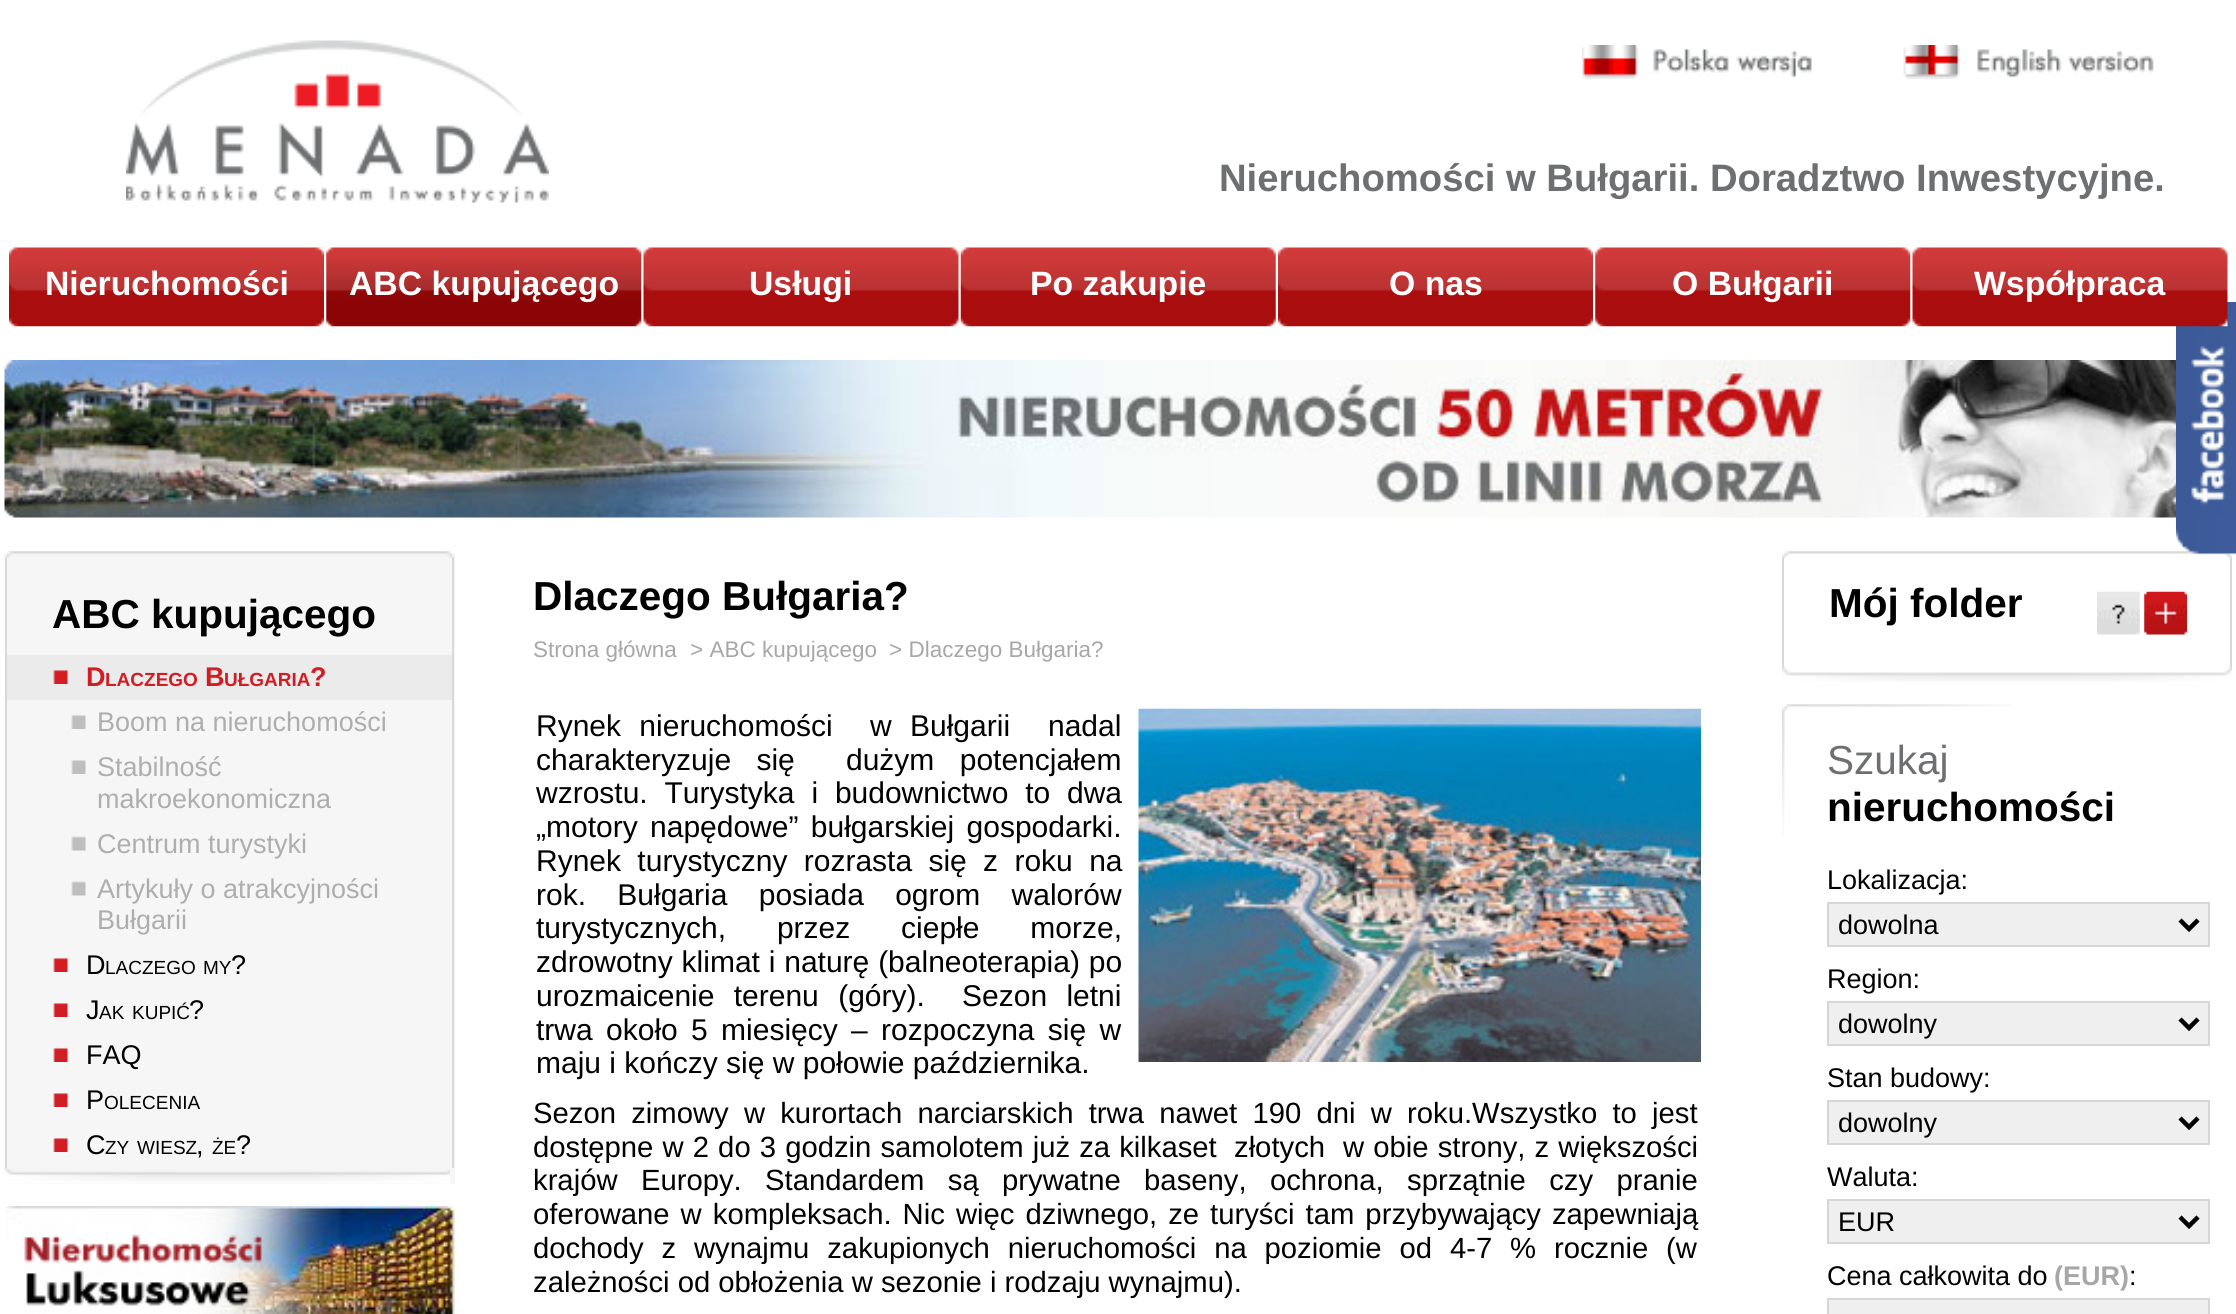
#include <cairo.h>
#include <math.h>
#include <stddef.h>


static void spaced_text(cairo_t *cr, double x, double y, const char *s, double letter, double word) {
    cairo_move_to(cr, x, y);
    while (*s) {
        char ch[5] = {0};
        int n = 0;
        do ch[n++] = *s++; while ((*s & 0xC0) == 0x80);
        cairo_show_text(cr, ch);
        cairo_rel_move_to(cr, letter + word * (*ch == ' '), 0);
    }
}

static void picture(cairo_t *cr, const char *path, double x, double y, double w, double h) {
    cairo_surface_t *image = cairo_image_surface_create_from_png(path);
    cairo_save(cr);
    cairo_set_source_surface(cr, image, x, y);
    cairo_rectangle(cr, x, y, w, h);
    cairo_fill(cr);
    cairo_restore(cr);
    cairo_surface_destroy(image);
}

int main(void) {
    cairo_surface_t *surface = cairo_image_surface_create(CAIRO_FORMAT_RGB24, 2236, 1314);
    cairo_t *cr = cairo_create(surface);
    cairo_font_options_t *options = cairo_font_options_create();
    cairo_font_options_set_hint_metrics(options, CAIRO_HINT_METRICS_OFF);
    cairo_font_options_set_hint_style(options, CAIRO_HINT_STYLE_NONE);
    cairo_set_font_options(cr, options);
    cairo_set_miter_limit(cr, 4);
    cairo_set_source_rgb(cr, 1, 1, 1);
    cairo_paint(cr);
    picture(cr, "img1.png", 126, 40, 423, 163);
    picture(cr, "img2.png", 1581, 45, 231, 34);
    picture(cr, "img3.png", 1903, 45, 251, 34);
    cairo_select_font_face(cr, "Liberation Sans", CAIRO_FONT_SLANT_NORMAL, CAIRO_FONT_WEIGHT_BOLD);
    cairo_set_font_size(cr, 38.25);
    cairo_set_source_rgb(cr, 0.427, 0.435, 0.443);
    cairo_move_to(cr, 1219, 191);
    cairo_show_text(cr, "Nieruchomości w Bułgarii. Doradztwo Inwestycyjne.");
    picture(cr, "img4.png", 9, 247, 315, 80);
    cairo_set_font_size(cr, 33.75);
    cairo_set_source_rgb(cr, 1, 1, 1);
    cairo_move_to(cr, 45, 295);
    cairo_show_text(cr, "Nieruchomości");
    picture(cr, "img5.png", 326, 247, 316, 80);
    cairo_move_to(cr, 349, 295);
    cairo_show_text(cr, "ABC kupującego");
    picture(cr, "img6.png", 643, 247, 316, 80);
    cairo_move_to(cr, 749, 295);
    cairo_show_text(cr, "Usługi");
    picture(cr, "img7.png", 960, 247, 316, 80);
    cairo_move_to(cr, 1030, 295);
    cairo_show_text(cr, "Po zakupie");
    picture(cr, "img4.png", 1278, 247, 315, 80);
    cairo_move_to(cr, 1389, 295);
    cairo_show_text(cr, "O nas");
    picture(cr, "img8.png", 1595, 247, 316, 80);
    cairo_move_to(cr, 1672, 295);
    cairo_show_text(cr, "O Bułgarii");
    picture(cr, "img20.png", 1782, 551, 450, 7);
    picture(cr, "img11.png", 2176, 302, 60, 253);
    picture(cr, "img9.png", 1912, 247, 316, 80);
    cairo_move_to(cr, 1974, 295);
    cairo_show_text(cr, "Współpraca");
    picture(cr, "img10.png", 4, 360, 2172, 158);
    cairo_set_source_rgb(cr, 0.961, 0.961, 0.961);
    cairo_rectangle(cr, 5, 551, 450, 633);
    cairo_fill(cr);
    picture(cr, "img12.png", 4, 551, 451, 7);
    cairo_set_source_rgb(cr, 0.851, 0.851, 0.851);
    cairo_rectangle(cr, 452, 558, 2, 610);
    cairo_fill(cr);
    cairo_rectangle(cr, 5, 558, 2, 610);
    cairo_fill(cr);
    cairo_set_font_size(cr, 40.5);
    cairo_set_source_rgb(cr, 0, 0, 0);
    cairo_move_to(cr, 52, 628);
    cairo_show_text(cr, "ABC kupującego");
    picture(cr, "img13.png", 4, 1168, 446, 16);
    cairo_set_source_rgb(cr, 0.918, 0.918, 0.918);
    cairo_rectangle(cr, 7, 655, 445, 45);
    cairo_fill(cr);
    picture(cr, "img14.png", 53, 670, 16, 14);
    cairo_set_font_size(cr, 27);
    cairo_set_source_rgb(cr, 0.82, 0.114, 0.137);
    cairo_move_to(cr, 86, 686);
    cairo_show_text(cr, "D");
    cairo_set_font_size(cr, 19);
    cairo_move_to(cr, 105, 686);
    cairo_show_text(cr, "LACZEGO");
    cairo_set_font_size(cr, 27);
    cairo_move_to(cr, 205, 686);
    cairo_show_text(cr, "B");
    cairo_set_font_size(cr, 19);
    cairo_move_to(cr, 224, 686);
    cairo_show_text(cr, "UŁGARIA");
    cairo_set_font_size(cr, 27);
    cairo_move_to(cr, 310, 686);
    cairo_show_text(cr, "?");
    picture(cr, "img15.png", 71, 715, 15, 14);
    cairo_select_font_face(cr, "Liberation Sans", CAIRO_FONT_SLANT_NORMAL, CAIRO_FONT_WEIGHT_NORMAL);
    cairo_set_source_rgb(cr, 0.686, 0.682, 0.682);
    cairo_move_to(cr, 97, 731);
    cairo_show_text(cr, "Boom na nieruchomości");
    picture(cr, "img15.png", 71, 760, 15, 14);
    cairo_move_to(cr, 97, 776);
    cairo_show_text(cr, "Stabilność");
    cairo_move_to(cr, 97, 808);
    cairo_show_text(cr, "makroekonomiczna");
    picture(cr, "img16.png", 71, 836, 15, 15);
    cairo_move_to(cr, 97, 853);
    cairo_show_text(cr, "Centrum turystyki");
    picture(cr, "img16.png", 71, 881, 15, 15);
    cairo_move_to(cr, 97, 898);
    cairo_show_text(cr, "Artykuły o atrakcyjności");
    cairo_move_to(cr, 97, 929);
    cairo_show_text(cr, "Bułgarii");
    picture(cr, "img17.png", 53, 958, 16, 14);
    cairo_set_source_rgb(cr, 0, 0, 0);
    cairo_move_to(cr, 86, 974);
    cairo_show_text(cr, "D");
    cairo_set_font_size(cr, 19);
    cairo_move_to(cr, 105, 974);
    cairo_show_text(cr, "LACZEGO");
    cairo_move_to(cr, 203, 974);
    cairo_show_text(cr, "MY");
    cairo_set_font_size(cr, 27);
    cairo_move_to(cr, 231, 974);
    cairo_show_text(cr, "?");
    picture(cr, "img17.png", 53, 1003, 16, 14);
    cairo_move_to(cr, 86, 1019);
    cairo_show_text(cr, "J");
    cairo_set_font_size(cr, 19);
    cairo_move_to(cr, 99, 1019);
    cairo_show_text(cr, "AK");
    cairo_move_to(cr, 132, 1019);
    cairo_show_text(cr, "KUPIĆ");
    cairo_set_font_size(cr, 27);
    cairo_move_to(cr, 189, 1019);
    cairo_show_text(cr, "?");
    picture(cr, "img17.png", 53, 1048, 16, 14);
    cairo_move_to(cr, 86, 1064);
    cairo_show_text(cr, "FAQ");
    picture(cr, "img17.png", 53, 1093, 16, 14);
    cairo_move_to(cr, 86, 1109);
    cairo_show_text(cr, "P");
    cairo_set_font_size(cr, 19);
    cairo_move_to(cr, 104, 1109);
    cairo_show_text(cr, "OLECENIA");
    picture(cr, "img17.png", 53, 1138, 16, 14);
    cairo_set_font_size(cr, 27);
    cairo_move_to(cr, 86, 1154);
    cairo_show_text(cr, "C");
    cairo_set_font_size(cr, 19);
    cairo_move_to(cr, 105, 1154);
    cairo_show_text(cr, "ZY");
    cairo_move_to(cr, 137, 1154);
    cairo_show_text(cr, "WIESZ");
    cairo_set_font_size(cr, 27);
    cairo_move_to(cr, 196, 1154);
    cairo_show_text(cr, ",");
    cairo_set_font_size(cr, 19);
    cairo_move_to(cr, 212, 1154);
    cairo_show_text(cr, "ŻE");
    cairo_set_font_size(cr, 27);
    cairo_move_to(cr, 236, 1154);
    cairo_show_text(cr, "?");
    picture(cr, "img18.png", 5, 1206, 450, 108);
    cairo_select_font_face(cr, "Liberation Sans", CAIRO_FONT_SLANT_NORMAL, CAIRO_FONT_WEIGHT_BOLD);
    cairo_set_font_size(cr, 40.5);
    cairo_move_to(cr, 533, 610);
    cairo_show_text(cr, "Dlaczego Bułgaria?");
    cairo_select_font_face(cr, "Liberation Sans", CAIRO_FONT_SLANT_NORMAL, CAIRO_FONT_WEIGHT_NORMAL);
    cairo_set_font_size(cr, 22.5);
    cairo_set_source_rgb(cr, 0.655, 0.655, 0.655);
    cairo_move_to(cr, 533, 657);
    cairo_show_text(cr, "Strona główna");
    cairo_move_to(cr, 690, 657);
    cairo_show_text(cr, "> ABC kupującego");
    cairo_move_to(cr, 889, 657);
    cairo_show_text(cr, "> Dlaczego Bułgaria?");
    cairo_set_font_size(cr, 30);
    cairo_set_source_rgb(cr, 0, 0, 0);
    spaced_text(cr, 536, 736, "Rynek nieruchomości", 0, 10);
    spaced_text(cr, 870, 736, "w Bułgarii", 0, 10);
    cairo_move_to(cr, 1048, 736);
    cairo_show_text(cr, "nadal");
    spaced_text(cr, 536, 770, "charakteryzuje się", 0, 17);
    spaced_text(cr, 846, 770, "dużym potencjałem", 0, 17);
    spaced_text(cr, 536, 803, "wzrostu. Turystyka i budownictwo to dwa", 0, 8.5);
    spaced_text(cr, 536, 837, "„motory napędowe” bułgarskiej gospodarki.", 0, 4);
    spaced_text(cr, 536, 871, "Rynek turystyczny rozrasta się z roku na", 0, 8);
    spaced_text(cr, 536, 905, "rok. Bułgaria posiada ogrom walorów", 0, 23);
    spaced_text(cr, 536, 938, "turystycznych, przez ciepłe morze,", 0, 42.5);
    spaced_text(cr, 536, 972, "zdrowotny klimat i naturę (balneoterapia) po", 0, 0.5);
    spaced_text(cr, 536, 1006, "urozmaicenie terenu (góry).", 0, 11);
    spaced_text(cr, 962, 1006, "Sezon letni", 0, 11);
    spaced_text(cr, 536, 1040, "trwa około 5 miesięcy – rozpoczyna się w", 0, 5);
    cairo_move_to(cr, 536, 1073);
    cairo_show_text(cr, "maju i kończy się w połowie października.");
    picture(cr, "img19.png", 1138, 708, 563, 354);
    cairo_set_font_size(cr, 29.25);
    spaced_text(cr, 533, 1123, "Sezon zimowy w kurortach narciarskich trwa nawet 190 dni w roku.Wszystko to jest", 0, 7.1);
    spaced_text(cr, 533, 1157, "dostępne w 2 do 3 godzin samolotem już za kilkaset", 0, 1);
    cairo_move_to(cr, 1234, 1157);
    cairo_show_text(cr, "złotych");
    spaced_text(cr, 1343, 1157, "w obie strony, z większości", 0, 1);
    spaced_text(cr, 533, 1190, "krajów Europy. Standardem są prywatne baseny, ochrona, sprzątnie czy pranie", 0, 15.25);
    spaced_text(cr, 533, 1224, "oferowane w kompleksach. Nic więc dziwnego, ze turyści tam przybywający zapewniają", 0, 2.9);
    spaced_text(cr, 533, 1258, "dochody z wynajmu zakupionych nieruchomości na poziomie od 4-7 % rocznie (w", 0, 9.75);
    cairo_move_to(cr, 533, 1292);
    cairo_show_text(cr, "zależności od obłożenia w sezonie i rodzaju wynajmu).");
    picture(cr, "img21.png", 1782, 666, 450, 16);
    cairo_set_source_rgb(cr, 0.851, 0.851, 0.851);
    cairo_rectangle(cr, 2230, 558, 2, 108);
    cairo_fill(cr);
    cairo_rectangle(cr, 1782, 558, 2, 108);
    cairo_fill(cr);
    cairo_select_font_face(cr, "Liberation Sans", CAIRO_FONT_SLANT_NORMAL, CAIRO_FONT_WEIGHT_BOLD);
    cairo_set_font_size(cr, 40.5);
    cairo_set_source_rgb(cr, 0, 0, 0);
    cairo_move_to(cr, 1829, 617);
    cairo_show_text(cr, "Mój folder");
    picture(cr, "img22.png", 2097, 591, 43, 44);
    picture(cr, "img23.png", 2144, 591, 43, 44);
    picture(cr, "img24.png", 1782, 704, 231, 133);
    cairo_select_font_face(cr, "Liberation Sans", CAIRO_FONT_SLANT_NORMAL, CAIRO_FONT_WEIGHT_NORMAL);
    cairo_set_source_rgb(cr, 0.427, 0.435, 0.443);
    cairo_move_to(cr, 1827, 774);
    cairo_show_text(cr, "Szukaj");
    cairo_select_font_face(cr, "Liberation Sans", CAIRO_FONT_SLANT_NORMAL, CAIRO_FONT_WEIGHT_BOLD);
    cairo_set_source_rgb(cr, 0, 0, 0);
    cairo_move_to(cr, 1827, 821);
    cairo_show_text(cr, "nieruchomości");
    cairo_select_font_face(cr, "Liberation Sans", CAIRO_FONT_SLANT_NORMAL, CAIRO_FONT_WEIGHT_NORMAL);
    cairo_set_font_size(cr, 27);
    cairo_move_to(cr, 1827, 889);
    cairo_show_text(cr, "Lokalizacja:");
    cairo_set_source_rgb(cr, 0.937, 0.937, 0.937);
    cairo_rectangle(cr, 1828, 903, 381, 43);
    cairo_fill_preserve(cr);
    cairo_set_source_rgb(cr, 0.839, 0.839, 0.839);
    cairo_stroke(cr);
    cairo_new_path(cr);
    cairo_move_to(cr, 2180, 920);
    cairo_line_to(cr, 2189, 929);
    cairo_line_to(cr, 2198, 920);
    cairo_set_source_rgb(cr, 0, 0, 0);
    cairo_set_line_width(cr, 4.5);
    cairo_stroke(cr);
    cairo_move_to(cr, 1838, 934);
    cairo_show_text(cr, "dowolna");
    cairo_move_to(cr, 1827, 988);
    cairo_show_text(cr, "Region:");
    cairo_set_source_rgb(cr, 0.937, 0.937, 0.937);
    cairo_rectangle(cr, 1828, 1002, 381, 43);
    cairo_fill_preserve(cr);
    cairo_set_source_rgb(cr, 0.839, 0.839, 0.839);
    cairo_set_line_width(cr, 2);
    cairo_stroke(cr);
    cairo_new_path(cr);
    cairo_move_to(cr, 2180, 1019);
    cairo_line_to(cr, 2189, 1028);
    cairo_line_to(cr, 2198, 1019);
    cairo_set_source_rgb(cr, 0, 0, 0);
    cairo_set_line_width(cr, 4.5);
    cairo_stroke(cr);
    cairo_move_to(cr, 1838, 1033);
    cairo_show_text(cr, "dowolny");
    cairo_move_to(cr, 1827, 1087);
    cairo_show_text(cr, "Stan budowy:");
    cairo_set_source_rgb(cr, 0.937, 0.937, 0.937);
    cairo_rectangle(cr, 1828, 1101, 381, 43);
    cairo_fill_preserve(cr);
    cairo_set_source_rgb(cr, 0.839, 0.839, 0.839);
    cairo_set_line_width(cr, 2);
    cairo_stroke(cr);
    cairo_new_path(cr);
    cairo_move_to(cr, 2180, 1118);
    cairo_line_to(cr, 2189, 1127);
    cairo_line_to(cr, 2198, 1118);
    cairo_set_source_rgb(cr, 0, 0, 0);
    cairo_set_line_width(cr, 4.5);
    cairo_stroke(cr);
    cairo_move_to(cr, 1838, 1132);
    cairo_show_text(cr, "dowolny");
    cairo_move_to(cr, 1827, 1186);
    cairo_show_text(cr, "Waluta:");
    cairo_set_source_rgb(cr, 0.937, 0.937, 0.937);
    cairo_rectangle(cr, 1828, 1200, 381, 43);
    cairo_fill_preserve(cr);
    cairo_set_source_rgb(cr, 0.839, 0.839, 0.839);
    cairo_set_line_width(cr, 2);
    cairo_stroke(cr);
    cairo_new_path(cr);
    cairo_move_to(cr, 2180, 1217);
    cairo_line_to(cr, 2189, 1226);
    cairo_line_to(cr, 2198, 1217);
    cairo_set_source_rgb(cr, 0, 0, 0);
    cairo_set_line_width(cr, 4.5);
    cairo_stroke(cr);
    cairo_move_to(cr, 1838, 1231);
    cairo_show_text(cr, "EUR");
    cairo_move_to(cr, 1827, 1285);
    cairo_show_text(cr, "Cena całkowita do");
    cairo_select_font_face(cr, "Liberation Sans", CAIRO_FONT_SLANT_NORMAL, CAIRO_FONT_WEIGHT_BOLD);
    cairo_set_source_rgb(cr, 0.655, 0.655, 0.655);
    cairo_move_to(cr, 2054, 1285);
    cairo_show_text(cr, "(EUR)");
    cairo_select_font_face(cr, "Liberation Sans", CAIRO_FONT_SLANT_NORMAL, CAIRO_FONT_WEIGHT_NORMAL);
    cairo_set_source_rgb(cr, 0, 0, 0);
    cairo_move_to(cr, 2129, 1285);
    cairo_show_text(cr, ":");
    cairo_set_source_rgb(cr, 0.937, 0.937, 0.937);
    cairo_rectangle(cr, 1828, 1299, 381, 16);
    cairo_fill_preserve(cr);
    cairo_set_source_rgb(cr, 0.839, 0.839, 0.839);
    cairo_set_line_width(cr, 2);
    cairo_stroke(cr);
    cairo_surface_write_to_png(surface, "page.png");
    cairo_font_options_destroy(options);
    cairo_destroy(cr);
    cairo_surface_destroy(surface);
    return 0;
}
